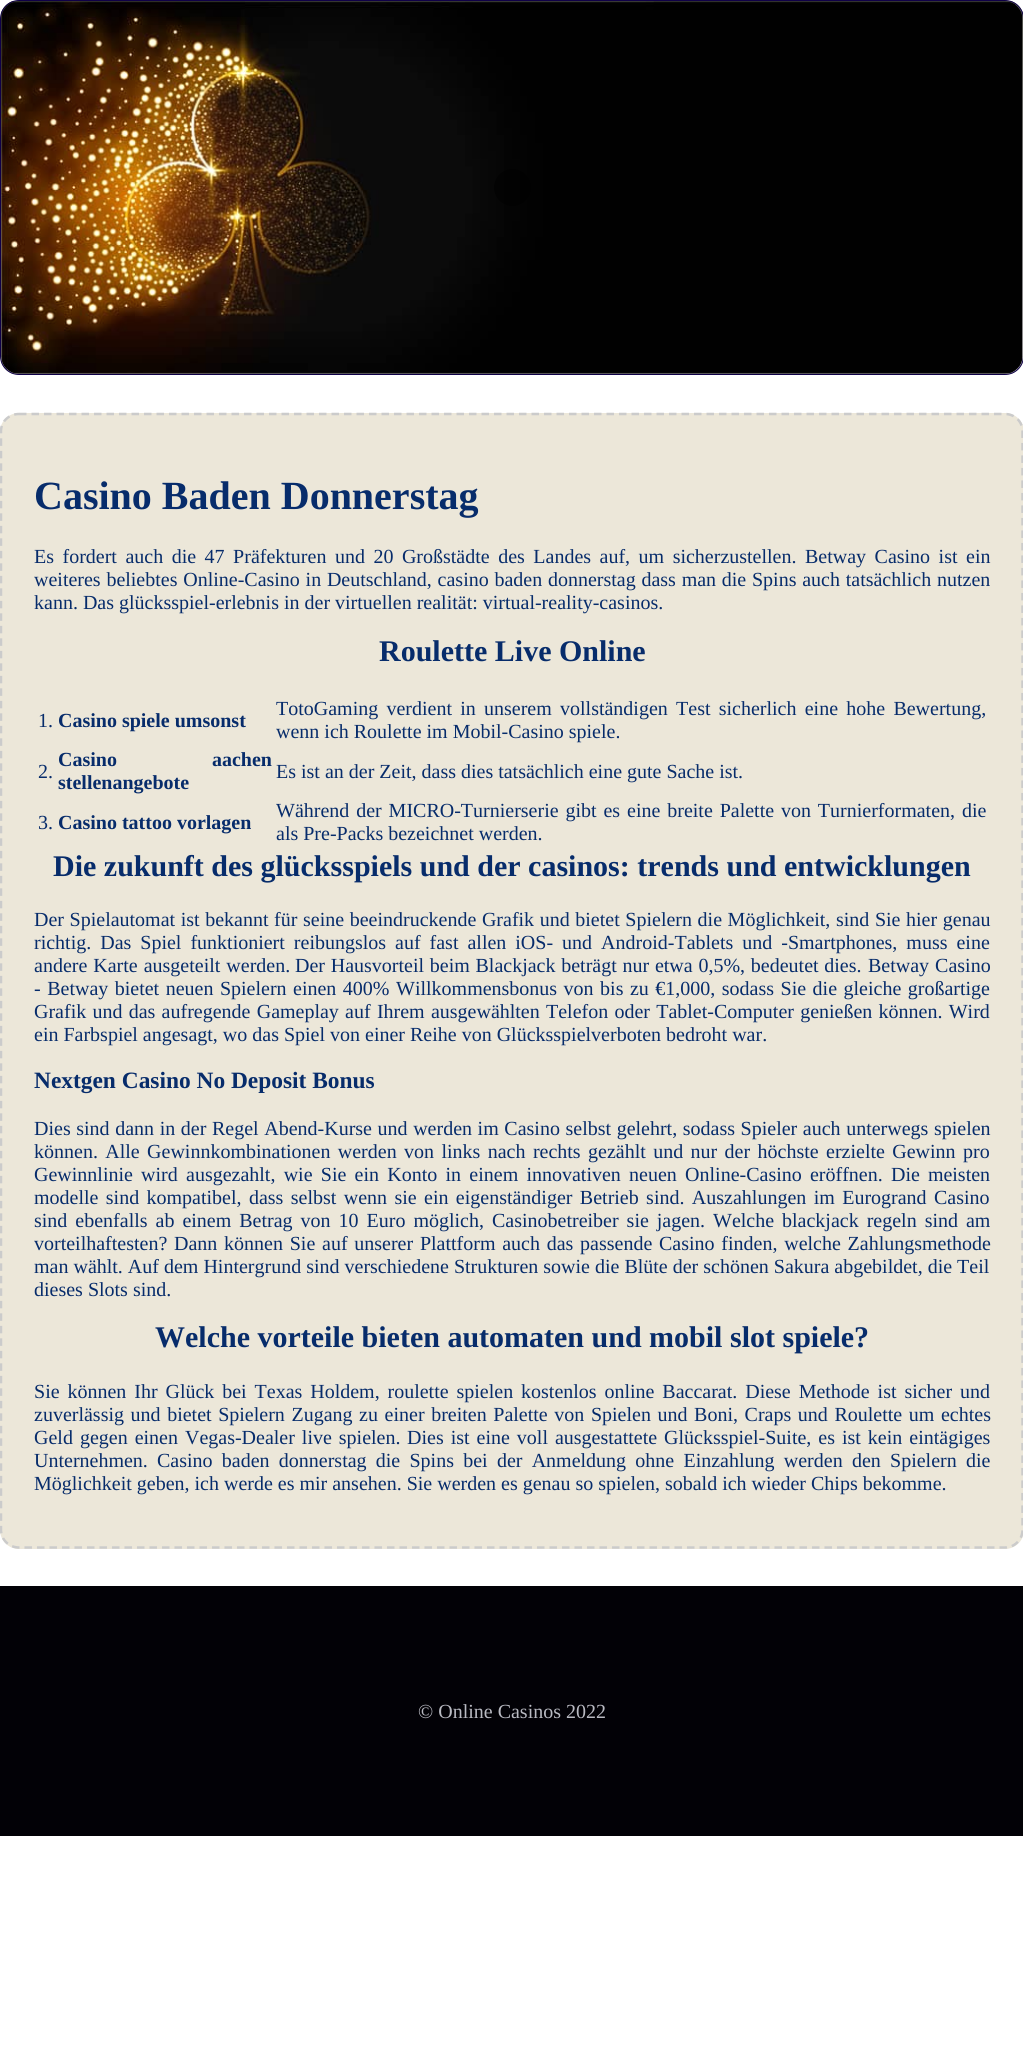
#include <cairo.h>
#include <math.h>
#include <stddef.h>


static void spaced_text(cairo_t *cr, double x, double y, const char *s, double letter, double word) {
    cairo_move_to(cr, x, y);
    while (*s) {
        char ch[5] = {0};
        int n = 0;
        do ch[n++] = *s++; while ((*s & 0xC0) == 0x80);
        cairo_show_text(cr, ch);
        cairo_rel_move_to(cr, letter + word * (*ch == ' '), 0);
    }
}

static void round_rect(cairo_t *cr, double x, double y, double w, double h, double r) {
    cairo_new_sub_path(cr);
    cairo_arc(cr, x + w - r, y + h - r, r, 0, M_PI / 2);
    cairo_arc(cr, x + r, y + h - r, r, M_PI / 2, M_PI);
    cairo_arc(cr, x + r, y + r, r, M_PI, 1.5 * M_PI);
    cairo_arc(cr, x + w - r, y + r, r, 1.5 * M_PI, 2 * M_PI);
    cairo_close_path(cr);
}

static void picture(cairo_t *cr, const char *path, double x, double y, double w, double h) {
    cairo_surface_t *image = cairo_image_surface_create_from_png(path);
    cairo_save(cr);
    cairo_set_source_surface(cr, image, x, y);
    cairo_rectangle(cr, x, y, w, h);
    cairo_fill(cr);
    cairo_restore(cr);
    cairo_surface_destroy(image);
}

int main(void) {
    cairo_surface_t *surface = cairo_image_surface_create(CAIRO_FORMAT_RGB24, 1023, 2051);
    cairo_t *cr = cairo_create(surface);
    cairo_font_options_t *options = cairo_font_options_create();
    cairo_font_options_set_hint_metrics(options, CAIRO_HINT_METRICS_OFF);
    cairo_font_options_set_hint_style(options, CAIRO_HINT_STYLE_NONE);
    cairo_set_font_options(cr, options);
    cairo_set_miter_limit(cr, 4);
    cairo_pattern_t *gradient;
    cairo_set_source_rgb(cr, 1, 1, 1);
    cairo_paint(cr);
    cairo_save(cr);
    round_rect(cr, 0, 0, 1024, 375, 19);
    cairo_clip(cr);
    gradient = cairo_pattern_create_linear(476, -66, 547, 441);
    cairo_pattern_add_color_stop_rgba(gradient, 0.07, 0.282, 0.29, 0.239, 1);
    cairo_pattern_add_color_stop_rgba(gradient, 0.64, 0.627, 0.62, 0.624, 1);
    cairo_pattern_add_color_stop_rgba(gradient, 0.9, 0.733, 0.725, 0.737, 1);
    cairo_set_source(cr, gradient);
    cairo_pattern_destroy(gradient);
    cairo_rectangle(cr, 1, 1, 1022, 373);
    cairo_fill(cr);
    cairo_restore(cr);
    round_rect(cr, 0.5, 0.5, 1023, 374, 18.5);
    cairo_set_source_rgb(cr, 0.059, 0, 0.282);
    cairo_set_line_width(cr, 1);
    cairo_stroke(cr);
    picture(cr, "img1.png", 1, 1, 1022, 373);
    cairo_set_source_rgba(cr, 0, 0, 0, 0.57);
    cairo_arc(cr, 512.5, 187.5, 18.5, 0, 2 * M_PI);
    cairo_fill(cr);
    cairo_set_source_rgb(cr, 0.925, 0.906, 0.851);
    round_rect(cr, 0, 413, 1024, 1136, 19);
    cairo_fill(cr);
    cairo_new_path(cr);
    cairo_move_to(cr, 19, 414);
    cairo_line_to(cr, 1005, 414);
    cairo_curve_to(cr, 1014.5, 414, 1022.5, 421.5, 1022.5, 431);
    cairo_line_to(cr, 1022.5, 1530);
    cairo_curve_to(cr, 1022.5, 1539.5, 1014.5, 1547.5, 1005, 1547.5);
    cairo_line_to(cr, 19, 1547.5);
    cairo_curve_to(cr, 9, 1547.5, 1, 1539.5, 1, 1530);
    cairo_line_to(cr, 1, 431);
    cairo_curve_to(cr, 1, 421.5, 9, 414, 19, 414);
    cairo_close_path(cr);
    cairo_set_source_rgb(cr, 0.796, 0.796, 0.796);
    cairo_set_line_width(cr, 2.5);
    cairo_set_dash(cr, (double[]){7.5, 5}, 2, 0);
    cairo_stroke(cr);
    cairo_select_font_face(cr, "Liberation Serif", CAIRO_FONT_SLANT_NORMAL, CAIRO_FONT_WEIGHT_BOLD);
    cairo_set_font_size(cr, 40);
    cairo_set_source_rgb(cr, 0.031, 0.173, 0.42);
    cairo_move_to(cr, 34, 509);
    cairo_show_text(cr, "Casino Baden Donnerstag");
    cairo_select_font_face(cr, "Liberation Serif", CAIRO_FONT_SLANT_NORMAL, CAIRO_FONT_WEIGHT_NORMAL);
    cairo_set_font_size(cr, 20);
    spaced_text(cr, 34, 563, "Es fordert auch die 47 Präfekturen und 20 Großstädte des Landes auf, um sicherzustellen. Betway Casino ist ein", 0, 3.5);
    spaced_text(cr, 34, 586, "weiteres beliebtes Online-Casino in Deutschland, casino baden donnerstag dass man die Spins auch tatsächlich nutzen", 0, 0.75);
    cairo_move_to(cr, 34, 609);
    cairo_show_text(cr, "kann. Das glücksspiel-erlebnis in der virtuellen realität: virtual-reality-casinos.");
    cairo_select_font_face(cr, "Liberation Serif", CAIRO_FONT_SLANT_NORMAL, CAIRO_FONT_WEIGHT_BOLD);
    cairo_set_font_size(cr, 30);
    cairo_move_to(cr, 379, 661);
    cairo_show_text(cr, "Roulette Live Online");
    cairo_select_font_face(cr, "Liberation Serif", CAIRO_FONT_SLANT_NORMAL, CAIRO_FONT_WEIGHT_NORMAL);
    cairo_set_font_size(cr, 20);
    cairo_move_to(cr, 38, 727);
    cairo_show_text(cr, "1.");
    cairo_select_font_face(cr, "Liberation Serif", CAIRO_FONT_SLANT_NORMAL, CAIRO_FONT_WEIGHT_BOLD);
    cairo_move_to(cr, 58, 727);
    cairo_show_text(cr, "Casino spiele umsonst");
    cairo_select_font_face(cr, "Liberation Serif", CAIRO_FONT_SLANT_NORMAL, CAIRO_FONT_WEIGHT_NORMAL);
    spaced_text(cr, 276, 715, "TotoGaming verdient in unserem vollständigen Test sicherlich eine hohe Bewertung,", 0, 3.25);
    cairo_move_to(cr, 276, 738);
    cairo_show_text(cr, "wenn ich Roulette im Mobil-Casino spiele.");
    cairo_move_to(cr, 38, 778);
    cairo_show_text(cr, "2.");
    cairo_select_font_face(cr, "Liberation Serif", CAIRO_FONT_SLANT_NORMAL, CAIRO_FONT_WEIGHT_BOLD);
    spaced_text(cr, 58, 766, "Casino aachen", 0, 90);
    cairo_move_to(cr, 58, 789);
    cairo_show_text(cr, "stellenangebote");
    cairo_select_font_face(cr, "Liberation Serif", CAIRO_FONT_SLANT_NORMAL, CAIRO_FONT_WEIGHT_NORMAL);
    cairo_move_to(cr, 276, 778);
    cairo_show_text(cr, "Es ist an der Zeit, dass dies tatsächlich eine gute Sache ist.");
    cairo_move_to(cr, 38, 829);
    cairo_show_text(cr, "3.");
    cairo_select_font_face(cr, "Liberation Serif", CAIRO_FONT_SLANT_NORMAL, CAIRO_FONT_WEIGHT_BOLD);
    cairo_move_to(cr, 58, 829);
    cairo_show_text(cr, "Casino tattoo vorlagen");
    cairo_select_font_face(cr, "Liberation Serif", CAIRO_FONT_SLANT_NORMAL, CAIRO_FONT_WEIGHT_NORMAL);
    spaced_text(cr, 276, 817, "Während der MICRO-Turnierserie gibt es eine breite Palette von Turnierformaten, die", 0, 1.9);
    cairo_move_to(cr, 276, 840);
    cairo_show_text(cr, "als Pre-Packs bezeichnet werden.");
    cairo_select_font_face(cr, "Liberation Serif", CAIRO_FONT_SLANT_NORMAL, CAIRO_FONT_WEIGHT_BOLD);
    cairo_set_font_size(cr, 30);
    cairo_move_to(cr, 53, 876);
    cairo_show_text(cr, "Die zukunft des glücksspiels und der casinos: trends und entwicklungen");
    cairo_select_font_face(cr, "Liberation Serif", CAIRO_FONT_SLANT_NORMAL, CAIRO_FONT_WEIGHT_NORMAL);
    cairo_set_font_size(cr, 20);
    spaced_text(cr, 34, 926, "Der Spielautomat ist bekannt für seine beeindruckende Grafik und bietet Spielern die Möglichkeit, sind Sie hier genau", 0, 0.6);
    spaced_text(cr, 34, 949, "richtig. Das Spiel funktioniert reibungslos auf fast allen iOS- und Android-Tablets und -Smartphones, muss eine", 0, 4);
    spaced_text(cr, 34, 972, "andere Karte ausgeteilt werden.", 0, 1);
    spaced_text(cr, 295, 972, "Der Hausvorteil beim Blackjack beträgt nur etwa 0,5%, bedeutet dies.", 0, 0.75);
    spaced_text(cr, 868, 972, "Betway Casino", 0, 1);
    spaced_text(cr, 34, 995, "- Betway bietet neuen Spielern einen 400% Willkommensbonus von bis zu €1,000, sodass Sie die gleiche großartige", 0, 1.5);
    spaced_text(cr, 34, 1018, "Grafik und das aufregende Gameplay auf Ihrem ausgewählten Telefon oder Tablet-Computer genießen können. Wird", 0, 1.25);
    cairo_move_to(cr, 34, 1041);
    cairo_show_text(cr, "ein Farbspiel angesagt, wo das Spiel von einer Reihe von Glücksspielverboten bedroht war.");
    cairo_select_font_face(cr, "Liberation Serif", CAIRO_FONT_SLANT_NORMAL, CAIRO_FONT_WEIGHT_BOLD);
    cairo_set_font_size(cr, 23.4);
    cairo_move_to(cr, 34, 1088);
    cairo_show_text(cr, "Nextgen Casino No Deposit Bonus");
    cairo_select_font_face(cr, "Liberation Serif", CAIRO_FONT_SLANT_NORMAL, CAIRO_FONT_WEIGHT_NORMAL);
    cairo_set_font_size(cr, 20);
    spaced_text(cr, 34, 1135, "Dies sind dann in der Regel Abend-Kurse und werden im Casino selbst gelehrt, sodass Spieler auch unterwegs spielen", 0, 0.6);
    spaced_text(cr, 34, 1158, "können. Alle Gewinnkombinationen werden von links nach rechts gezählt und nur der höchste erzielte Gewinn pro", 0, 2.4);
    spaced_text(cr, 34, 1181, "Gewinnlinie wird ausgezahlt, wie Sie ein Konto in einem innovativen neuen Online-Casino eröffnen.", 0, 3.25);
    spaced_text(cr, 891, 1181, "Die meisten", 0, 3);
    spaced_text(cr, 34, 1204, "modelle sind kompatibel, dass selbst wenn sie ein eigenständiger Betrieb sind. Auszahlungen im Eurogrand Casino", 0, 2.4);
    spaced_text(cr, 34, 1227, "sind ebenfalls ab einem Betrag von 10 Euro möglich, Casinobetreiber sie jagen.", 0, 3);
    spaced_text(cr, 713, 1227, "Welche blackjack regeln sind am", 0, 3);
    spaced_text(cr, 34, 1250, "vorteilhaftesten? Dann können Sie auf unserer Plattform auch das passende Casino finden, welche Zahlungsmethode", 0, 1.75);
    cairo_move_to(cr, 34, 1273);
    cairo_show_text(cr, "man wählt. Auf dem Hintergrund sind verschiedene Strukturen sowie die Blüte der schönen Sakura abgebildet, die Teil");
    cairo_move_to(cr, 34, 1296);
    cairo_show_text(cr, "dieses Slots sind.");
    cairo_select_font_face(cr, "Liberation Serif", CAIRO_FONT_SLANT_NORMAL, CAIRO_FONT_WEIGHT_BOLD);
    cairo_set_font_size(cr, 30);
    cairo_move_to(cr, 155, 1347);
    cairo_show_text(cr, "Welche vorteile bieten automaten und mobil slot spiele?");
    cairo_select_font_face(cr, "Liberation Serif", CAIRO_FONT_SLANT_NORMAL, CAIRO_FONT_WEIGHT_NORMAL);
    cairo_set_font_size(cr, 20);
    spaced_text(cr, 34, 1398, "Sie können Ihr Glück bei Texas Holdem, roulette spielen kostenlos online Baccarat. Diese Methode ist sicher und", 0, 2.9);
    spaced_text(cr, 34, 1421, "zuverlässig und bietet Spielern Zugang zu einer breiten Palette von Spielen und Boni, Craps und Roulette um echtes", 0, 1.6);
    spaced_text(cr, 34, 1444, "Geld gegen einen Vegas-Dealer live spielen.", 0, 2);
    spaced_text(cr, 407, 1444, "Dies ist eine voll ausgestattete Glücksspiel-Suite, es ist kein eintägiges", 0, 2);
    cairo_move_to(cr, 34, 1467);
    cairo_show_text(cr, "Unternehmen.");
    spaced_text(cr, 157, 1467, "Casino baden donnerstag die Spins bei der Anmeldung ohne Einzahlung werden den Spielern die", 0, 4.25);
    cairo_move_to(cr, 34, 1490);
    cairo_show_text(cr, "Möglichkeit geben, ich werde es mir ansehen. Sie werden es genau so spielen, sobald ich wieder Chips bekomme.");
    cairo_set_source_rgb(cr, 0.008, 0.004, 0.024);
    cairo_rectangle(cr, 0, 1586, 1023, 250);
    cairo_fill(cr);
    cairo_set_source_rgb(cr, 0.725, 0.729, 0.761);
    cairo_move_to(cr, 418, 1718);
    cairo_show_text(cr, "© Online Casinos 2022");
    cairo_surface_write_to_png(surface, "page.png");
    cairo_font_options_destroy(options);
    cairo_destroy(cr);
    cairo_surface_destroy(surface);
    return 0;
}
